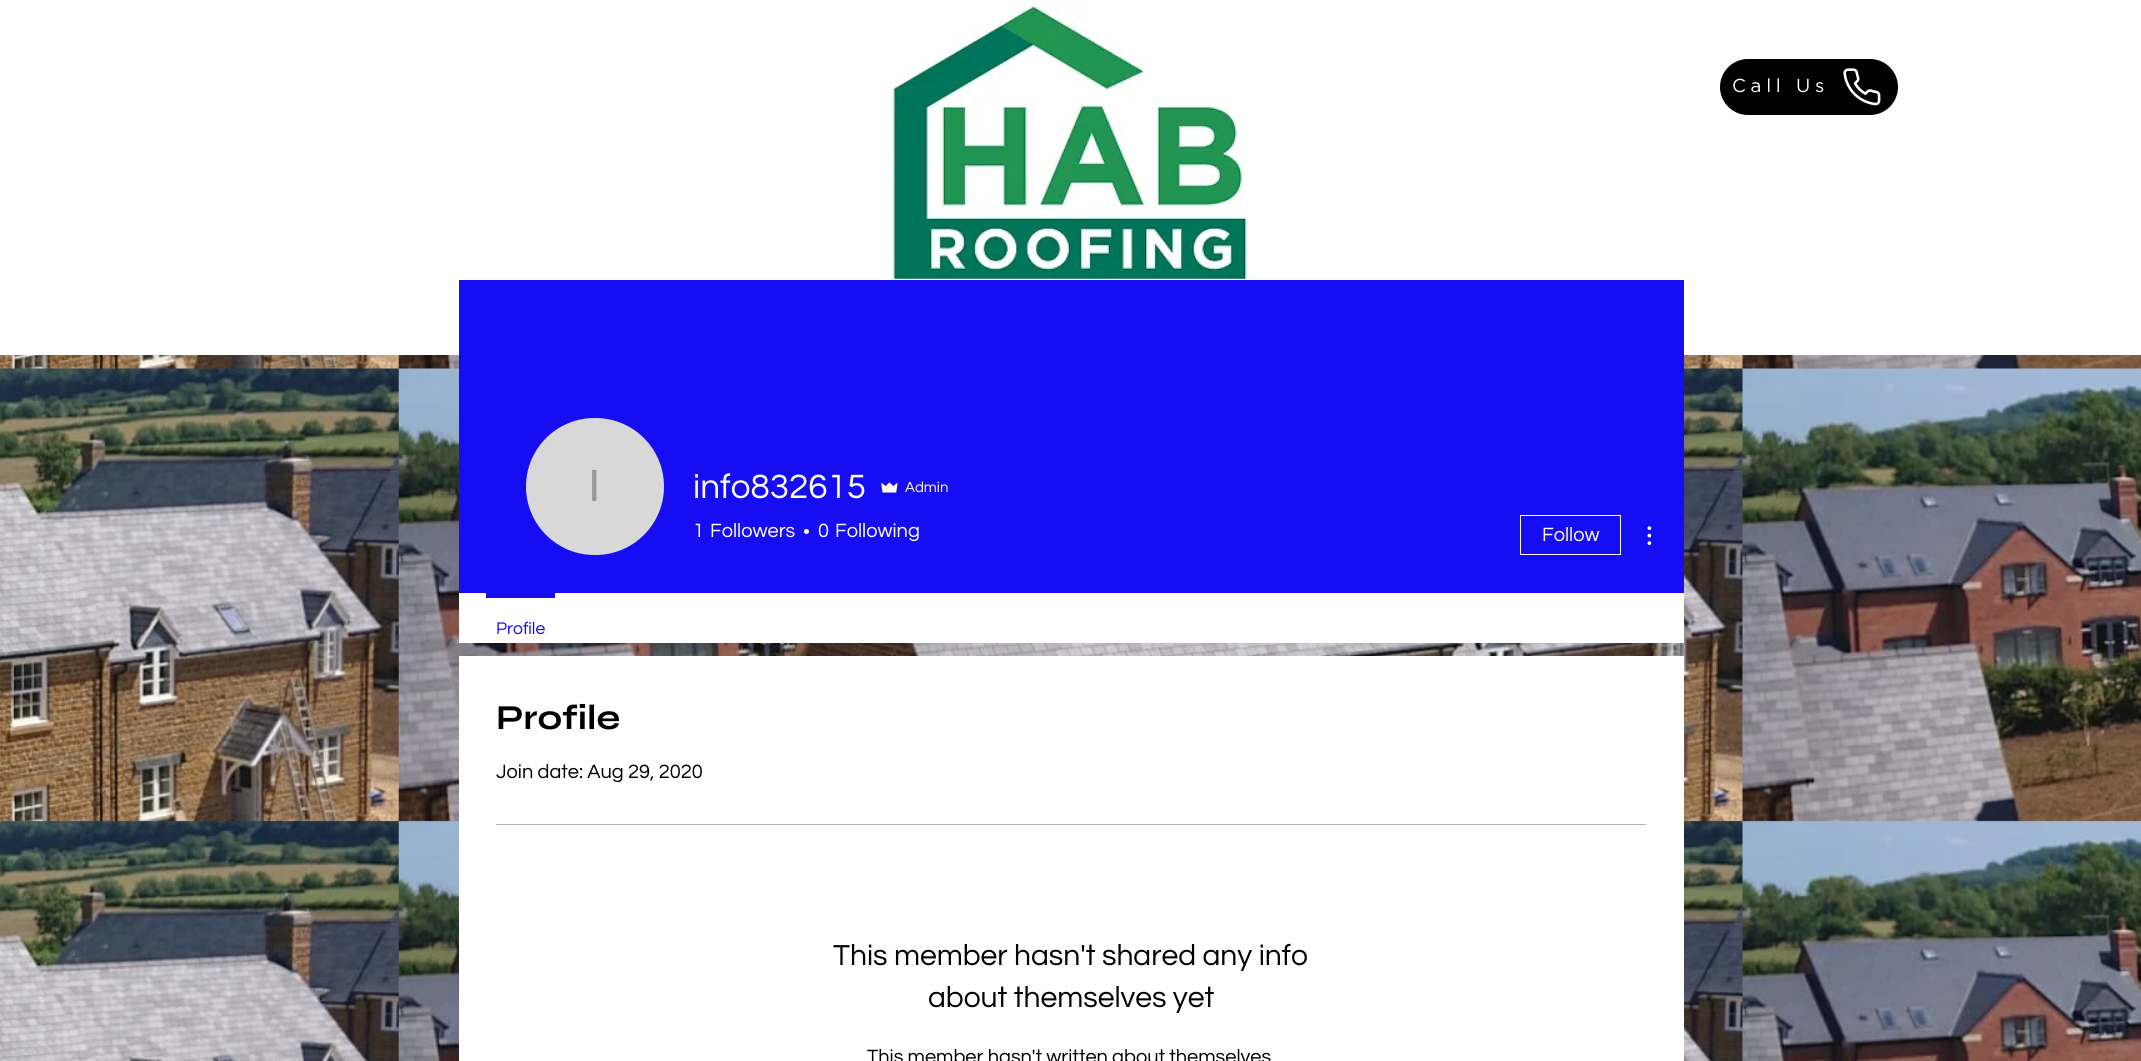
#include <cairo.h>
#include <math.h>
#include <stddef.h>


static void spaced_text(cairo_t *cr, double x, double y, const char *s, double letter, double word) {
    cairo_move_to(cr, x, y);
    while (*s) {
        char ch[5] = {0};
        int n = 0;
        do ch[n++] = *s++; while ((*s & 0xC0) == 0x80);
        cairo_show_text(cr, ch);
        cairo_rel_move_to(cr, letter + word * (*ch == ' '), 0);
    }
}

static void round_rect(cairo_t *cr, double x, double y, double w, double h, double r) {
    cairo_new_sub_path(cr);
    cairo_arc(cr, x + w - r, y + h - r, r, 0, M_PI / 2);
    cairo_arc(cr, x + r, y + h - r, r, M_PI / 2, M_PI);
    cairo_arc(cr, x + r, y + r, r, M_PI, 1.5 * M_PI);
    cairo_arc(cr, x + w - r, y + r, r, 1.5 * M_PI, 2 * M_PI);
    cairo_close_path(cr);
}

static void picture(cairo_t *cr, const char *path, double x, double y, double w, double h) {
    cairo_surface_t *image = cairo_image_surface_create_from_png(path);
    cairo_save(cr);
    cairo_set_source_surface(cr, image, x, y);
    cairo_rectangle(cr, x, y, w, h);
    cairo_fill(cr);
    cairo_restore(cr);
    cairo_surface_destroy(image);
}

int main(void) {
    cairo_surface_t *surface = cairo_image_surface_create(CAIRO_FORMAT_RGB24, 2141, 1061);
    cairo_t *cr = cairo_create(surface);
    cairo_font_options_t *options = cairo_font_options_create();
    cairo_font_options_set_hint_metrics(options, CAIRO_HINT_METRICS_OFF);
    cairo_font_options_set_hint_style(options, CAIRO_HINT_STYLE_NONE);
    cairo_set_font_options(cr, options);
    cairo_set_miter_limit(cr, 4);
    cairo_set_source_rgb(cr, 1, 1, 1);
    cairo_paint(cr);
    picture(cr, "img1.png", 892, 0, 357, 280);
    cairo_set_source_rgb(cr, 0, 0, 0);
    round_rect(cr, 1720, 59, 178, 56, 28);
    cairo_fill(cr);
    cairo_select_font_face(cr, "Gotham", CAIRO_FONT_SLANT_NORMAL, CAIRO_FONT_WEIGHT_NORMAL);
    cairo_set_font_size(cr, 18.75);
    cairo_set_source_rgb(cr, 1, 1, 1);
    spaced_text(cr, 1732, 92, "Call Us", 4.75, 0);
    picture(cr, "img2.png", 1843, 68, 38, 38);
    picture(cr, "img5.png", 0, 355, 2141, 706);
    cairo_set_source_rgb(cr, 0.09, 0.051, 0.949);
    cairo_rectangle(cr, 459, 280, 1225, 313);
    cairo_fill(cr);
    cairo_set_source_rgb(cr, 0.847, 0.847, 0.847);
    round_rect(cr, 526, 418, 138, 137, 68.5);
    cairo_fill(cr);
    cairo_select_font_face(cr, "Liberation Sans", CAIRO_FONT_SLANT_NORMAL, CAIRO_FONT_WEIGHT_NORMAL);
    cairo_set_font_size(cr, 45);
    cairo_set_source_rgb(cr, 0.592, 0.592, 0.592);
    cairo_move_to(cr, 588, 501);
    cairo_show_text(cr, "I");
    cairo_select_font_face(cr, "Questrial", CAIRO_FONT_SLANT_NORMAL, CAIRO_FONT_WEIGHT_NORMAL);
    cairo_set_font_size(cr, 35);
    cairo_set_source_rgb(cr, 1, 1, 1);
    cairo_move_to(cr, 693, 498);
    cairo_show_text(cr, "info832615");
    picture(cr, "img3.png", 881, 482, 17, 11);
    cairo_set_font_size(cr, 15);
    cairo_move_to(cr, 905, 492);
    cairo_show_text(cr, "Admin");
    cairo_set_font_size(cr, 20);
    cairo_move_to(cr, 693, 537);
    cairo_show_text(cr, "1");
    cairo_move_to(cr, 710, 537);
    cairo_show_text(cr, "Followers");
    cairo_new_path(cr);
    cairo_arc(cr, 806.5, 531.5, 2.5, 0, 2 * M_PI);
    cairo_fill(cr);
    cairo_move_to(cr, 818, 537);
    cairo_show_text(cr, "0");
    cairo_move_to(cr, 835, 537);
    cairo_show_text(cr, "Following");
    cairo_rectangle(cr, 1520.5, 515.5, 100, 39);
    cairo_set_line_width(cr, 1);
    cairo_stroke(cr);
    cairo_move_to(cr, 1542, 541);
    cairo_show_text(cr, "Follow");
    picture(cr, "img4.png", 1647, 526, 5, 19);
    cairo_rectangle(cr, 459, 593, 1225, 50);
    cairo_fill(cr);
    cairo_set_source_rgb(cr, 0.09, 0.051, 0.949);
    cairo_rectangle(cr, 486, 593, 69, 5);
    cairo_fill(cr);
    cairo_set_font_size(cr, 17.5);
    cairo_move_to(cr, 496, 634);
    cairo_show_text(cr, "Profile");
    cairo_set_source_rgb(cr, 1, 1, 1);
    cairo_rectangle(cr, 459, 656, 1225, 405);
    cairo_fill(cr);
    cairo_select_font_face(cr, "Syne", CAIRO_FONT_SLANT_NORMAL, CAIRO_FONT_WEIGHT_BOLD);
    cairo_set_font_size(cr, 35);
    cairo_set_source_rgb(cr, 0, 0, 0);
    cairo_move_to(cr, 496, 729);
    cairo_show_text(cr, "Profile");
    cairo_select_font_face(cr, "Questrial", CAIRO_FONT_SLANT_NORMAL, CAIRO_FONT_WEIGHT_NORMAL);
    cairo_set_font_size(cr, 20);
    cairo_move_to(cr, 496, 778);
    cairo_show_text(cr, "Join date: Aug 29, 2020");
    cairo_set_source_rgb(cr, 0.702, 0.702, 0.702);
    cairo_rectangle(cr, 496, 824, 1150, 1);
    cairo_fill(cr);
    cairo_set_font_size(cr, 30);
    cairo_set_source_rgb(cr, 0, 0, 0);
    cairo_move_to(cr, 833, 965);
    cairo_show_text(cr, "This member hasn't shared any info");
    cairo_move_to(cr, 928, 1007);
    cairo_show_text(cr, "about themselves yet");
    cairo_set_font_size(cr, 20);
    cairo_move_to(cr, 867, 1063);
    cairo_show_text(cr, "This member hasn't written about themselves");
    cairo_surface_write_to_png(surface, "page.png");
    cairo_font_options_destroy(options);
    cairo_destroy(cr);
    cairo_surface_destroy(surface);
    return 0;
}
